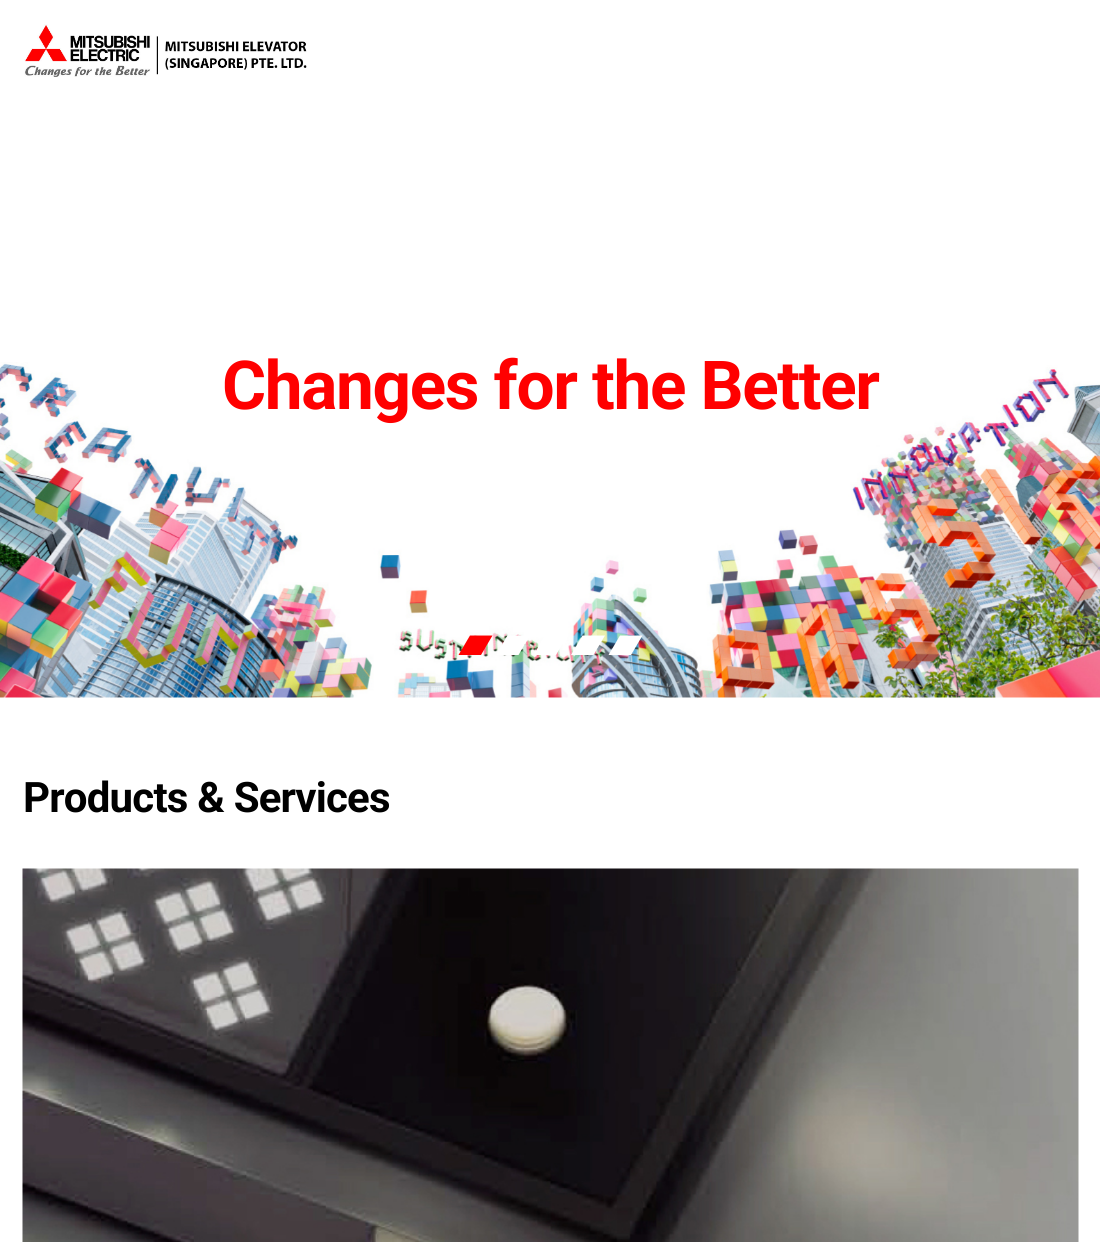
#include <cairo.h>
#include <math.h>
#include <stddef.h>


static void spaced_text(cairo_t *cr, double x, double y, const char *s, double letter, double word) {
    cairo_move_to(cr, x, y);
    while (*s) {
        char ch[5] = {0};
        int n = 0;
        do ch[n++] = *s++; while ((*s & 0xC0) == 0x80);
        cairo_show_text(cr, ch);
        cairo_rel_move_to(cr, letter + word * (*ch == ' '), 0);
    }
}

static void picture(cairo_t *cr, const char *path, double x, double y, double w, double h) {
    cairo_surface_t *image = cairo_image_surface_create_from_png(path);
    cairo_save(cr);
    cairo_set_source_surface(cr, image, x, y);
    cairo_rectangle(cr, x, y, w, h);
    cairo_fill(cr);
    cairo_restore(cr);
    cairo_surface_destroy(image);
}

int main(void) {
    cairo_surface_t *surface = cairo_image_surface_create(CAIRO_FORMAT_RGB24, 1100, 1242);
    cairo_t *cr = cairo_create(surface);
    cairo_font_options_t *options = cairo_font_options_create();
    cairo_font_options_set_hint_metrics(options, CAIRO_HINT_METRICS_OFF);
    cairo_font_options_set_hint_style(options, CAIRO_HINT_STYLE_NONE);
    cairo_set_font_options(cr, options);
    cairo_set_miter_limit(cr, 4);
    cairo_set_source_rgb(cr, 1, 1, 1);
    cairo_paint(cr);
    picture(cr, "img1.png", 24, 24, 283, 53);
    picture(cr, "img2.png", 0, 362, 1100, 336);
    cairo_select_font_face(cr, "Roboto", CAIRO_FONT_SLANT_NORMAL, CAIRO_FONT_WEIGHT_BOLD);
    cairo_set_font_size(cr, 67.5);
    cairo_set_source_rgb(cr, 1, 0, 0);
    spaced_text(cr, 222, 409, "Changes for the Better", -1.35, 0);
    cairo_new_path(cr);
    cairo_move_to(cr, 470, 635.5);
    cairo_line_to(cr, 492.5, 635.5);
    cairo_line_to(cr, 481, 655);
    cairo_line_to(cr, 458.5, 655);
    cairo_close_path(cr);
    cairo_fill(cr);
    cairo_set_source_rgb(cr, 1, 1, 1);
    cairo_new_path(cr);
    cairo_move_to(cr, 507.5, 635.5);
    cairo_line_to(cr, 530, 635.5);
    cairo_line_to(cr, 518.5, 655);
    cairo_line_to(cr, 496, 655);
    cairo_close_path(cr);
    cairo_fill(cr);
    cairo_new_path(cr);
    cairo_move_to(cr, 545, 635.5);
    cairo_line_to(cr, 567.5, 635.5);
    cairo_line_to(cr, 556, 655);
    cairo_line_to(cr, 533.5, 655);
    cairo_close_path(cr);
    cairo_fill(cr);
    cairo_new_path(cr);
    cairo_move_to(cr, 582.5, 635.5);
    cairo_line_to(cr, 605, 635.5);
    cairo_line_to(cr, 593.5, 655);
    cairo_line_to(cr, 571, 655);
    cairo_close_path(cr);
    cairo_fill(cr);
    cairo_new_path(cr);
    cairo_move_to(cr, 620, 635.5);
    cairo_line_to(cr, 642.5, 635.5);
    cairo_line_to(cr, 631, 655);
    cairo_line_to(cr, 608.5, 655);
    cairo_close_path(cr);
    cairo_fill(cr);
    cairo_set_font_size(cr, 42);
    cairo_set_source_rgb(cr, 0, 0, 0);
    spaced_text(cr, 23, 812, "Products & Services", -0.8, 0);
    picture(cr, "img3.png", 22, 868, 1057, 374);
    cairo_surface_write_to_png(surface, "page.png");
    cairo_font_options_destroy(options);
    cairo_destroy(cr);
    cairo_surface_destroy(surface);
    return 0;
}
